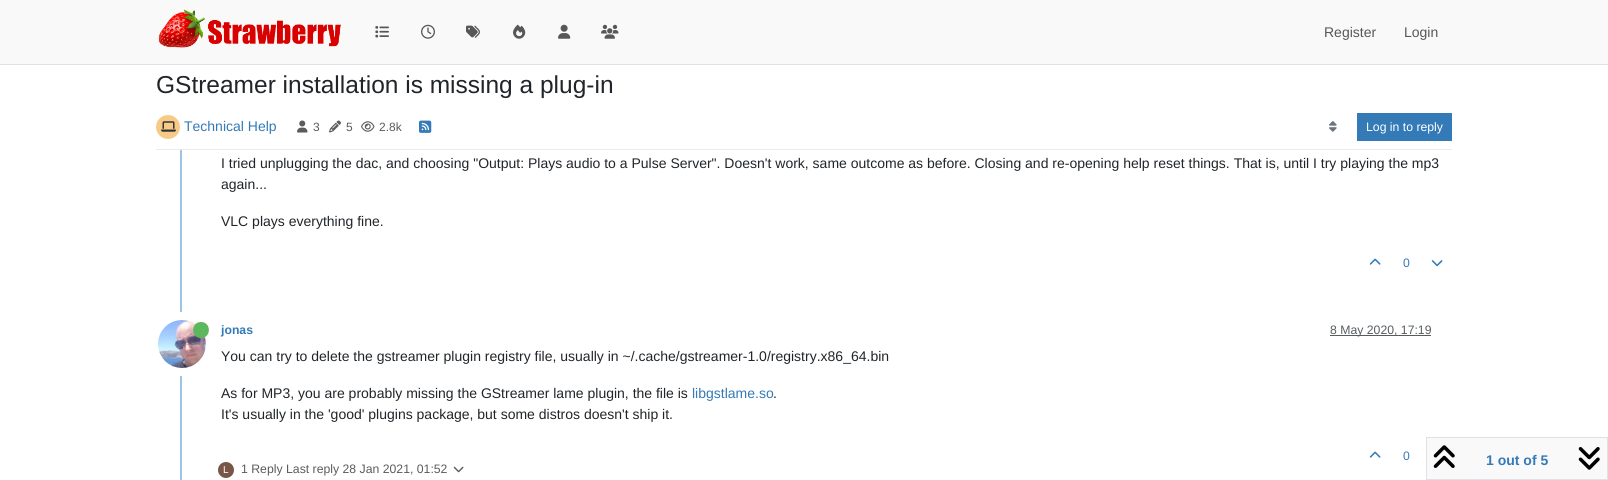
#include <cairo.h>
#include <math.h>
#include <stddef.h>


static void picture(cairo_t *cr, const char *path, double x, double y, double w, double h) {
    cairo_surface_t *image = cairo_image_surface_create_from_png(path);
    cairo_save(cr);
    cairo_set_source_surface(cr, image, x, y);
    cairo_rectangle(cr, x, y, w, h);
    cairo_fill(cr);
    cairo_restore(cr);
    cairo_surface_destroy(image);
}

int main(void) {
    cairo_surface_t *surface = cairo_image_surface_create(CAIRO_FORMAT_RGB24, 1608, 480);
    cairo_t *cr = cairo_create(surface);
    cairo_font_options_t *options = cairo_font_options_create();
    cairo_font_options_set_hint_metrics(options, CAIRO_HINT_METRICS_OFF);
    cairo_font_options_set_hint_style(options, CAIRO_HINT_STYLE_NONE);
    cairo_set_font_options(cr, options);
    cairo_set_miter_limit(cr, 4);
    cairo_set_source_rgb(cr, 1, 1, 1);
    cairo_paint(cr);
    cairo_set_source_rgb(cr, 0.973, 0.976, 0.98);
    cairo_rectangle(cr, 0, 0, 1608, 64);
    cairo_fill(cr);
    cairo_set_source_rgb(cr, 0.871, 0.886, 0.902);
    cairo_rectangle(cr, 0, 64, 1608, 1);
    cairo_fill(cr);
    picture(cr, "img1.png", 158, 9, 183, 39);
    picture(cr, "img2.png", 375, 26, 14, 12);
    picture(cr, "img3.png", 421, 24, 14, 15);
    picture(cr, "img4.png", 466, 25, 14, 13);
    picture(cr, "img5.png", 513, 24, 13, 15);
    picture(cr, "img6.png", 558, 24, 13, 15);
    picture(cr, "img7.png", 601, 24, 18, 15);
    cairo_select_font_face(cr, "Liberation Sans", CAIRO_FONT_SLANT_NORMAL, CAIRO_FONT_WEIGHT_NORMAL);
    cairo_set_font_size(cr, 14);
    cairo_set_source_rgb(cr, 0.341, 0.341, 0.345);
    cairo_move_to(cr, 1324, 37);
    cairo_show_text(cr, "Register");
    cairo_move_to(cr, 1404, 37);
    cairo_show_text(cr, "Login");
    cairo_set_font_size(cr, 24.5);
    cairo_set_source_rgb(cr, 0.129, 0.145, 0.161);
    cairo_move_to(cr, 156, 93);
    cairo_show_text(cr, "GStreamer installation is missing a plug-in");
    cairo_set_source_rgb(cr, 0.914, 0.925, 0.937);
    cairo_rectangle(cr, 156, 149, 1296, 1);
    cairo_fill(cr);
    cairo_set_source_rgb(cr, 0.969, 0.792, 0.533);
    cairo_arc(cr, 168, 127, 12, 0, 2 * M_PI);
    cairo_fill(cr);
    picture(cr, "img8.png", 161, 121, 15, 11);
    cairo_set_font_size(cr, 14);
    cairo_set_source_rgb(cr, 0.2, 0.478, 0.718);
    cairo_move_to(cr, 184, 131);
    cairo_show_text(cr, "Technical Help");
    picture(cr, "img9.png", 297, 120, 11, 13);
    cairo_set_font_size(cr, 12);
    cairo_set_source_rgb(cr, 0.349, 0.361, 0.373);
    cairo_move_to(cr, 313, 131);
    cairo_show_text(cr, "3");
    picture(cr, "img10.png", 329, 120, 12, 13);
    cairo_move_to(cr, 346, 131);
    cairo_show_text(cr, "5");
    picture(cr, "img11.png", 361, 121, 14, 11);
    cairo_move_to(cr, 379, 131);
    cairo_show_text(cr, "2.8k");
    picture(cr, "img12.png", 419, 120, 13, 13);
    picture(cr, "img13.png", 1329, 121, 8, 11);
    cairo_set_source_rgb(cr, 0.2, 0.478, 0.718);
    cairo_rectangle(cr, 1357, 113, 95, 28);
    cairo_fill(cr);
    cairo_set_font_size(cr, 12.25);
    cairo_set_source_rgb(cr, 1, 1, 1);
    cairo_move_to(cr, 1366, 131);
    cairo_show_text(cr, "Log in to reply");
    cairo_set_source_rgb(cr, 0.627, 0.769, 0.894);
    cairo_rectangle(cr, 180, 150, 2, 330);
    cairo_fill(cr);
    cairo_set_font_size(cr, 14);
    cairo_set_source_rgb(cr, 0.129, 0.145, 0.161);
    cairo_move_to(cr, 221, 168);
    cairo_show_text(cr, "I tried unplugging the dac, and choosing \"Output: Plays audio to a Pulse Server\". Doesn't work, same outcome as before. Closing and re-opening help reset things. That is, until I try playing the mp3");
    cairo_move_to(cr, 221, 189);
    cairo_show_text(cr, "again...");
    cairo_move_to(cr, 221, 226);
    cairo_show_text(cr, "VLC plays everything fine.");
    picture(cr, "img14.png", 1369, 258, 12, 7);
    cairo_set_font_size(cr, 12.25);
    cairo_set_source_rgb(cr, 0.2, 0.478, 0.718);
    cairo_move_to(cr, 1403, 267);
    cairo_show_text(cr, "0");
    picture(cr, "img15.png", 1431, 260, 12, 7);
    cairo_arc(cr, 182, 344, 28, 0, 2 * M_PI);
    cairo_set_source_rgb(cr, 1, 1, 1);
    cairo_set_line_width(cr, 8);
    cairo_stroke(cr);
    picture(cr, "img16.png", 158, 320, 48, 48);
    cairo_set_source_rgb(cr, 0.361, 0.722, 0.361);
    cairo_new_path(cr);
    cairo_move_to(cr, 201, 338);
    cairo_curve_to(cr, 211.5, 338, 211.5, 322, 201, 322);
    cairo_curve_to(cr, 190.5, 322, 190.5, 338, 201, 338);
    cairo_close_path(cr);
    cairo_fill(cr);
    cairo_select_font_face(cr, "Liberation Sans", CAIRO_FONT_SLANT_NORMAL, CAIRO_FONT_WEIGHT_BOLD);
    cairo_set_source_rgb(cr, 0.2, 0.478, 0.718);
    cairo_move_to(cr, 221, 334);
    cairo_show_text(cr, "jonas");
    cairo_set_source_rgb(cr, 0.349, 0.361, 0.373);
    cairo_rectangle(cr, 1330, 335, 101, 1);
    cairo_fill(cr);
    cairo_select_font_face(cr, "Liberation Sans", CAIRO_FONT_SLANT_NORMAL, CAIRO_FONT_WEIGHT_NORMAL);
    cairo_move_to(cr, 1330, 334);
    cairo_show_text(cr, "8 May 2020, 17:19");
    cairo_set_font_size(cr, 14);
    cairo_set_source_rgb(cr, 0.129, 0.145, 0.161);
    cairo_move_to(cr, 221, 361);
    cairo_show_text(cr, "You can try to delete the gstreamer plugin registry file, usually in ~/.cache/gstreamer-1.0/registry.x86_64.bin");
    cairo_move_to(cr, 221, 398);
    cairo_show_text(cr, "As for MP3, you are probably missing the GStreamer lame plugin, the file is");
    cairo_set_source_rgb(cr, 0.2, 0.478, 0.718);
    cairo_move_to(cr, 692, 398);
    cairo_show_text(cr, "libgstlame.so");
    cairo_set_source_rgb(cr, 0.129, 0.145, 0.161);
    cairo_move_to(cr, 773, 398);
    cairo_show_text(cr, ".");
    cairo_move_to(cr, 221, 419);
    cairo_show_text(cr, "It's usually in the 'good' plugins package, but some distros doesn't ship it.");
    picture(cr, "img14.png", 1369, 451, 12, 7);
    cairo_set_font_size(cr, 12.25);
    cairo_set_source_rgb(cr, 0.2, 0.478, 0.718);
    cairo_move_to(cr, 1403, 460);
    cairo_show_text(cr, "0");
    cairo_set_source_rgb(cr, 0.475, 0.333, 0.282);
    cairo_new_path(cr);
    cairo_arc(cr, 226, 470, 8, 0, 2 * M_PI);
    cairo_fill(cr);
    cairo_set_font_size(cr, 10);
    cairo_set_source_rgb(cr, 1, 1, 1);
    cairo_move_to(cr, 223, 473);
    cairo_show_text(cr, "L");
    cairo_set_font_size(cr, 12.25);
    cairo_set_source_rgb(cr, 0.349, 0.361, 0.373);
    cairo_move_to(cr, 241, 473);
    cairo_show_text(cr, "1 Reply");
    cairo_move_to(cr, 286, 473);
    cairo_show_text(cr, "Last reply 28 Jan 2021, 01:52");
    picture(cr, "img17.png", 453, 466, 11, 7);
    cairo_set_source_rgb(cr, 0.973, 0.976, 0.98);
    cairo_rectangle(cr, 1426.5, 437.5, 181, 42);
    cairo_fill_preserve(cr);
    cairo_set_source_rgb(cr, 0.871, 0.886, 0.902);
    cairo_set_line_width(cr, 1);
    cairo_stroke(cr);
    picture(cr, "img18.png", 1433, 445, 22, 23);
    cairo_select_font_face(cr, "Liberation Sans", CAIRO_FONT_SLANT_NORMAL, CAIRO_FONT_WEIGHT_BOLD);
    cairo_set_font_size(cr, 14);
    cairo_set_source_rgb(cr, 0.2, 0.478, 0.718);
    cairo_move_to(cr, 1486, 465);
    cairo_show_text(cr, "1 out of 5");
    picture(cr, "img19.png", 1578, 447, 22, 23);
    cairo_surface_write_to_png(surface, "page.png");
    cairo_font_options_destroy(options);
    cairo_destroy(cr);
    cairo_surface_destroy(surface);
    return 0;
}
